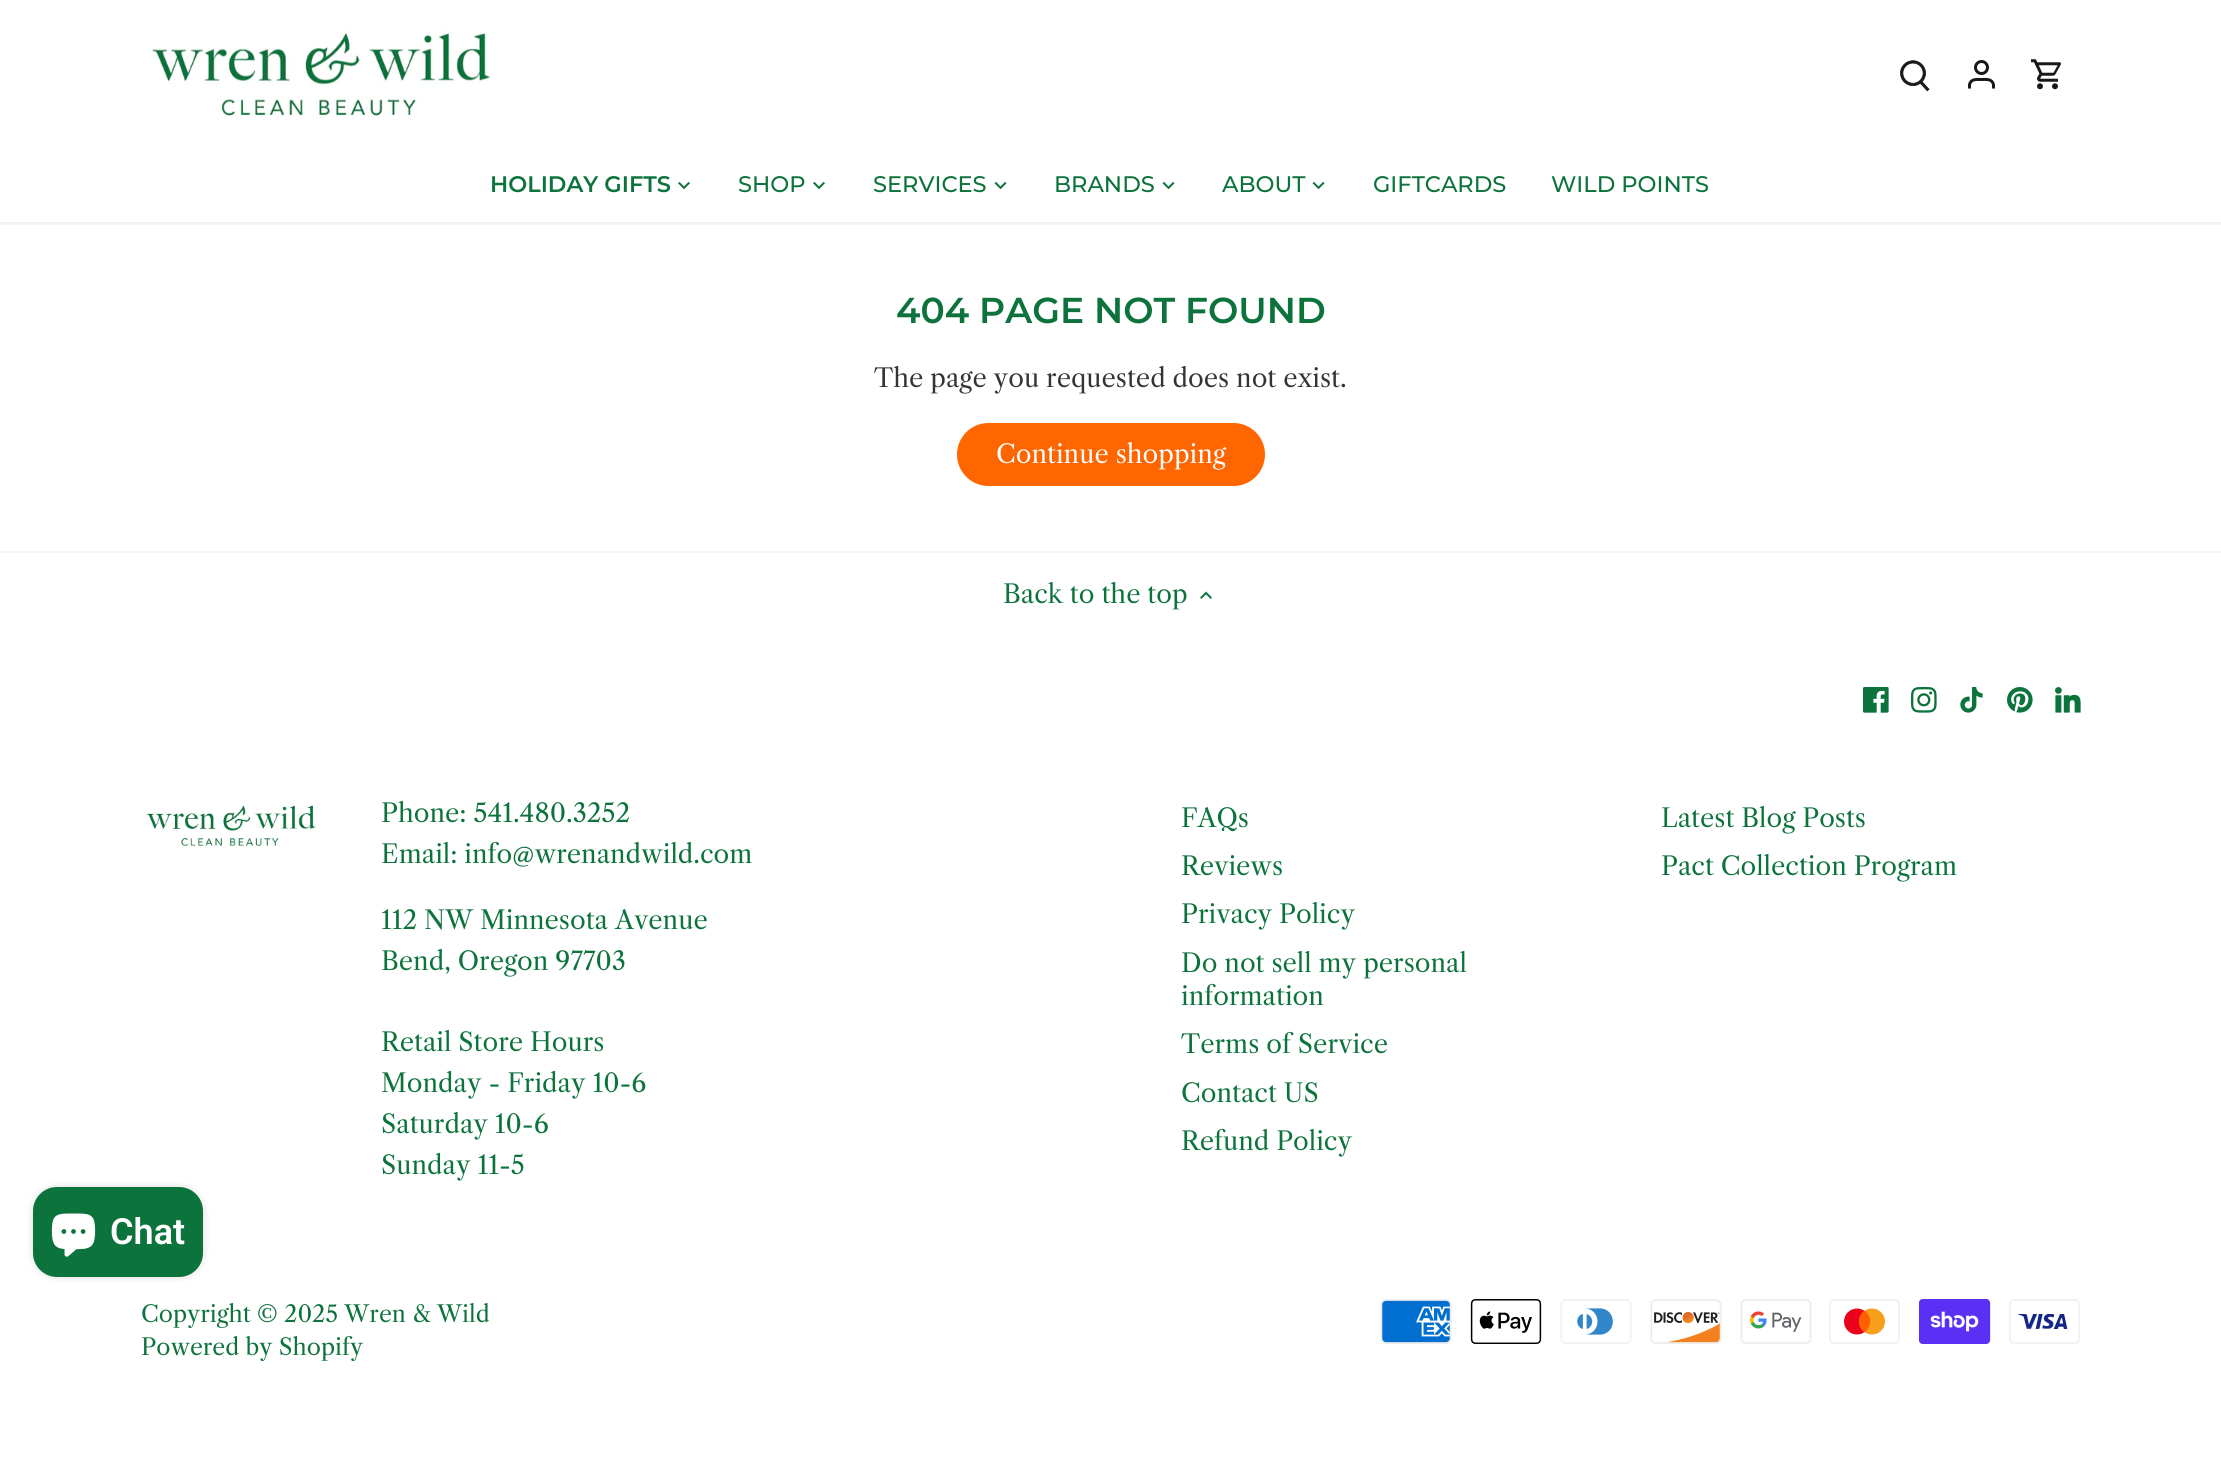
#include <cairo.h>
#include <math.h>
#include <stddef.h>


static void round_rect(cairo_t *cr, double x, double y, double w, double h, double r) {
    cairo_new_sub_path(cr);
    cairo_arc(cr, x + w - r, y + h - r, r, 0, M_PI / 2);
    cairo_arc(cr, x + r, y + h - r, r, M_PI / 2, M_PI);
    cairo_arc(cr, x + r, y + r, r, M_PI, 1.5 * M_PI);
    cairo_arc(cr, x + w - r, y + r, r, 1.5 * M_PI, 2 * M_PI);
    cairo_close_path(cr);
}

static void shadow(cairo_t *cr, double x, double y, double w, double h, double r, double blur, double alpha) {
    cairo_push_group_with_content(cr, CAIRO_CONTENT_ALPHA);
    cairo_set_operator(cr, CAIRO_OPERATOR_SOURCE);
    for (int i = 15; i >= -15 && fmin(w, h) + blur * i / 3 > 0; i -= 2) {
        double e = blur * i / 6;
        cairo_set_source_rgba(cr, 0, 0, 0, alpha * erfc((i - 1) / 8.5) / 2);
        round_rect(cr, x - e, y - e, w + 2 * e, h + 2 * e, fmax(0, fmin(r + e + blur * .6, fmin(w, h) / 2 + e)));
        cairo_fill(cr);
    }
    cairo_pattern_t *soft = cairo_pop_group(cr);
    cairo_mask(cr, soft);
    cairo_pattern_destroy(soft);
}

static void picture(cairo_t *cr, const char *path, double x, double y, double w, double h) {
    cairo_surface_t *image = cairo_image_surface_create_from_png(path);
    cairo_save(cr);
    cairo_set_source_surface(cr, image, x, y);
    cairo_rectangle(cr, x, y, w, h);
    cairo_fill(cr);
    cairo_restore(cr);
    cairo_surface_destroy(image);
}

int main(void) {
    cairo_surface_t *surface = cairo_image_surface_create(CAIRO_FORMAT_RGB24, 2221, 1463);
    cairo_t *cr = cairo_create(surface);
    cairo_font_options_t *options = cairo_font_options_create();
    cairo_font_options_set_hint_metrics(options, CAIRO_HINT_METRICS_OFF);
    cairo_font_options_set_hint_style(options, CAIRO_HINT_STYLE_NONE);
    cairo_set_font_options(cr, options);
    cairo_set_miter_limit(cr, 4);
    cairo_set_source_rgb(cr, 1, 1, 1);
    cairo_paint(cr);
    cairo_save(cr);
    cairo_rectangle(cr, 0, 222, 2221, 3);
    cairo_clip(cr);
    cairo_set_source_rgb(cr, 0, 0, 0);
    shadow(cr, -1, -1, 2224, 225, 0, 2, 0.08);
    cairo_restore(cr);
    picture(cr, "img1.png", 152, 30, 338, 88);
    picture(cr, "img2.png", 1900, 60, 30, 32);
    cairo_arc(cr, 1981.5, 67.5, 6, 0, 2 * M_PI);
    cairo_set_source_rgb(cr, 0.098, 0.094, 0.09);
    cairo_set_line_width(cr, 3);
    cairo_stroke(cr);
    cairo_new_path(cr);
    cairo_move_to(cr, 1993.5, 88.5);
    cairo_line_to(cr, 1993.5, 84.5);
    cairo_curve_to(cr, 1992, 78.5, 1986, 79.5, 1981.5, 79.5);
    cairo_curve_to(cr, 1977, 79.5, 1971, 78.5, 1969.5, 84.5);
    cairo_line_to(cr, 1969.5, 88.5);
    cairo_stroke(cr);
    picture(cr, "img3.png", 2031, 59, 30, 31);
    cairo_select_font_face(cr, "Montserrat SemiBold", CAIRO_FONT_SLANT_NORMAL, CAIRO_FONT_WEIGHT_NORMAL);
    cairo_set_font_size(cr, 22.5);
    cairo_set_source_rgb(cr, 0.051, 0.451, 0.235);
    cairo_move_to(cr, 490, 192);
    cairo_show_text(cr, "HOLIDAY GIFTS");
    picture(cr, "img4.png", 678, 181, 12, 9);
    cairo_select_font_face(cr, "Montserrat Medium", CAIRO_FONT_SLANT_NORMAL, CAIRO_FONT_WEIGHT_NORMAL);
    cairo_move_to(cr, 738, 192);
    cairo_show_text(cr, "SHOP");
    picture(cr, "img4.png", 813, 181, 12, 9);
    cairo_move_to(cr, 873, 192);
    cairo_show_text(cr, "SERVICES");
    picture(cr, "img5.png", 994, 181, 13, 9);
    cairo_move_to(cr, 1054, 192);
    cairo_show_text(cr, "BRANDS");
    picture(cr, "img5.png", 1162, 181, 13, 9);
    cairo_move_to(cr, 1222, 192);
    cairo_show_text(cr, "ABOUT");
    picture(cr, "img5.png", 1312, 181, 13, 9);
    cairo_move_to(cr, 1373, 192);
    cairo_show_text(cr, "GIFTCARDS");
    cairo_move_to(cr, 1551, 192);
    cairo_show_text(cr, "WILD POINTS");
    cairo_select_font_face(cr, "Montserrat SemiBold", CAIRO_FONT_SLANT_NORMAL, CAIRO_FONT_WEIGHT_NORMAL);
    cairo_set_font_size(cr, 36);
    cairo_move_to(cr, 896, 323);
    cairo_show_text(cr, "404 PAGE NOT FOUND");
    cairo_select_font_face(cr, "Libre Caslon Text", CAIRO_FONT_SLANT_NORMAL, CAIRO_FONT_WEIGHT_NORMAL);
    cairo_set_font_size(cr, 25.5);
    cairo_set_source_rgb(cr, 0.204, 0.204, 0.204);
    cairo_move_to(cr, 874, 387);
    cairo_show_text(cr, "The page you requested does not exist.");
    cairo_set_source_rgb(cr, 1, 0.4, 0);
    round_rect(cr, 958.5, 424.5, 305, 60, 30);
    cairo_fill_preserve(cr);
    cairo_stroke(cr);
    cairo_set_source_rgb(cr, 1, 1, 1);
    cairo_move_to(cr, 996, 463);
    cairo_show_text(cr, "Continue shopping");
    cairo_set_source_rgb(cr, 0.961, 0.961, 0.961);
    cairo_rectangle(cr, 0, 551, 2221, 2);
    cairo_fill(cr);
    cairo_set_source_rgb(cr, 0.051, 0.451, 0.235);
    cairo_move_to(cr, 1003, 603);
    cairo_show_text(cr, "Back to the top");
    picture(cr, "img6.png", 1200, 591, 12, 8);
    picture(cr, "img7.png", 1863, 687, 26, 26);
    picture(cr, "img8.png", 1911, 687, 26, 26);
    picture(cr, "img9.png", 1960, 687, 23, 26);
    picture(cr, "img10.png", 2007, 687, 26, 26);
    picture(cr, "img11.png", 2055, 687, 26, 26);
    picture(cr, "img12.png", 146, 804, 170, 43);
    cairo_move_to(cr, 381, 822);
    cairo_show_text(cr, "Phone: 541.480.3252");
    cairo_move_to(cr, 381, 863);
    cairo_show_text(cr, "Email: info@wrenandwild.com");
    cairo_move_to(cr, 381, 929);
    cairo_show_text(cr, "112 NW Minnesota Avenue");
    cairo_move_to(cr, 381, 970);
    cairo_show_text(cr, "Bend, Oregon 97703");
    cairo_move_to(cr, 381, 1051);
    cairo_show_text(cr, "Retail Store Hours");
    cairo_move_to(cr, 381, 1092);
    cairo_show_text(cr, "Monday - Friday 10-6");
    cairo_move_to(cr, 381, 1133);
    cairo_show_text(cr, "Saturday 10-6");
    cairo_move_to(cr, 381, 1174);
    cairo_show_text(cr, "Sunday 11-5");
    cairo_move_to(cr, 1181, 827);
    cairo_show_text(cr, "FAQs");
    cairo_move_to(cr, 1181, 875);
    cairo_show_text(cr, "Reviews");
    cairo_move_to(cr, 1181, 923);
    cairo_show_text(cr, "Privacy Policy");
    cairo_move_to(cr, 1181, 972);
    cairo_show_text(cr, "Do not sell my personal");
    cairo_move_to(cr, 1181, 1005);
    cairo_show_text(cr, "information");
    cairo_move_to(cr, 1181, 1053);
    cairo_show_text(cr, "Terms of Service");
    cairo_move_to(cr, 1181, 1102);
    cairo_show_text(cr, "Contact US");
    cairo_move_to(cr, 1181, 1150);
    cairo_show_text(cr, "Refund Policy");
    cairo_move_to(cr, 1661, 827);
    cairo_show_text(cr, "Latest Blog Posts");
    cairo_move_to(cr, 1661, 875);
    cairo_show_text(cr, "Pact Collection Program");
    cairo_set_font_size(cr, 23);
    cairo_move_to(cr, 141, 1322);
    cairo_show_text(cr, "Copyright © 2025 Wren & Wild");
    cairo_move_to(cr, 141, 1355);
    cairo_show_text(cr, "Powered by Shopify");
    picture(cr, "img13.png", 1380, 1299, 72, 45);
    picture(cr, "img14.png", 1470, 1299, 72, 45);
    picture(cr, "img15.png", 1560, 1299, 72, 45);
    picture(cr, "img16.png", 1650, 1299, 72, 45);
    picture(cr, "img17.png", 1740, 1299, 72, 45);
    picture(cr, "img18.png", 1829, 1299, 71, 45);
    picture(cr, "img19.png", 1919, 1299, 72, 45);
    picture(cr, "img20.png", 2009, 1299, 71, 45);
    cairo_set_source_rgb(cr, 0, 0, 0);
    shadow(cr, 33, 1187, 170, 90, 24, 4, 0.15);
    cairo_set_source_rgb(cr, 0.051, 0.451, 0.235);
    round_rect(cr, 33, 1187, 170, 90, 24);
    cairo_fill(cr);
    picture(cr, "img21.png", 51, 1213, 45, 44);
    cairo_select_font_face(cr, "Roboto SemiBold", CAIRO_FONT_SLANT_NORMAL, CAIRO_FONT_WEIGHT_NORMAL);
    cairo_set_font_size(cr, 36);
    cairo_set_source_rgb(cr, 1, 1, 1);
    cairo_move_to(cr, 110, 1244);
    cairo_show_text(cr, "Chat");
    cairo_surface_write_to_png(surface, "page.png");
    cairo_font_options_destroy(options);
    cairo_destroy(cr);
    cairo_surface_destroy(surface);
    return 0;
}
